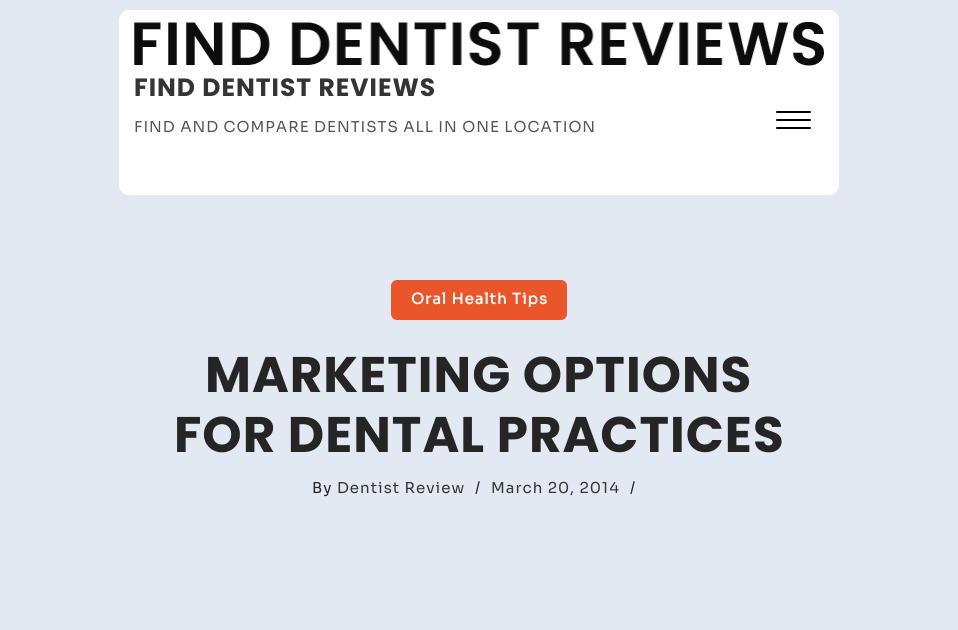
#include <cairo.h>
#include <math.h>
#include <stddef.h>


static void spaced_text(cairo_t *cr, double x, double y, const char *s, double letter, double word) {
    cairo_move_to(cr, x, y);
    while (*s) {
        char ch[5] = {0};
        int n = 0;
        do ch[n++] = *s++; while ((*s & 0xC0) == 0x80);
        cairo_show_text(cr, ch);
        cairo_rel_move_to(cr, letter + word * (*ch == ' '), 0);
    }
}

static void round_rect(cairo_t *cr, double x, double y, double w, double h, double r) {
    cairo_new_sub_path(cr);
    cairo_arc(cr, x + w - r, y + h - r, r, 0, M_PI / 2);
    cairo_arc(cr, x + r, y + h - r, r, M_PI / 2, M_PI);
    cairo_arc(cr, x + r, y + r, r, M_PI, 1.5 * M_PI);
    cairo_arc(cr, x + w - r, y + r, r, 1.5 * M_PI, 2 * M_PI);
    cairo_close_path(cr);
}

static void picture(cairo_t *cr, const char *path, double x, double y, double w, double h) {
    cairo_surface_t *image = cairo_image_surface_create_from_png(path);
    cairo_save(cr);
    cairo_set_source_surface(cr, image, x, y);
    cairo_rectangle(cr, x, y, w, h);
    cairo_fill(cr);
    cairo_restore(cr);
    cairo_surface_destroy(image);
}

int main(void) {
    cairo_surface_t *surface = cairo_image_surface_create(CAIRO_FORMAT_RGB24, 958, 630);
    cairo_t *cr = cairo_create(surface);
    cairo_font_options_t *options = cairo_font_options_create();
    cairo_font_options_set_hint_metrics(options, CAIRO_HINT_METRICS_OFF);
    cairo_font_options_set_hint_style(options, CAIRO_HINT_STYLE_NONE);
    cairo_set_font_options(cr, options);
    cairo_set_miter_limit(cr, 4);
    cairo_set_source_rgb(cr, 0.886, 0.914, 0.953);
    cairo_paint(cr);
    cairo_set_source_rgb(cr, 1, 1, 1);
    round_rect(cr, 119, 10, 720, 185, 10);
    cairo_fill(cr);
    picture(cr, "img1.png", 134, 22, 690, 44);
    cairo_select_font_face(cr, "Poppins", CAIRO_FONT_SLANT_NORMAL, CAIRO_FONT_WEIGHT_BOLD);
    cairo_set_font_size(cr, 25);
    cairo_set_source_rgb(cr, 0.204, 0.204, 0.204);
    spaced_text(cr, 134, 96, "FIND DENTIST REVIEWS", 1, 0);
    cairo_select_font_face(cr, "Sora", CAIRO_FONT_SLANT_NORMAL, CAIRO_FONT_WEIGHT_NORMAL);
    cairo_set_font_size(cr, 15);
    cairo_set_source_rgb(cr, 0.333, 0.333, 0.333);
    spaced_text(cr, 134, 132, "FIND AND COMPARE DENTISTS ALL IN ONE LOCATION", 1, 0);
    cairo_set_source_rgb(cr, 0, 0, 0);
    round_rect(cr, 776, 111, 35, 2, 1);
    cairo_fill(cr);
    round_rect(cr, 776, 119, 35, 2, 1);
    cairo_fill(cr);
    round_rect(cr, 776, 127, 35, 2, 1);
    cairo_fill(cr);
    cairo_set_source_rgb(cr, 0.918, 0.333, 0.169);
    round_rect(cr, 391, 280, 176, 40, 6);
    cairo_fill(cr);
    cairo_select_font_face(cr, "Sora", CAIRO_FONT_SLANT_NORMAL, CAIRO_FONT_WEIGHT_BOLD);
    cairo_set_source_rgb(cr, 1, 1, 1);
    spaced_text(cr, 411, 304, "Oral Health Tips", 1, 0);
    cairo_select_font_face(cr, "Poppins", CAIRO_FONT_SLANT_NORMAL, CAIRO_FONT_WEIGHT_BOLD);
    cairo_set_font_size(cr, 50);
    cairo_set_source_rgb(cr, 0.145, 0.145, 0.145);
    spaced_text(cr, 205, 392, "MARKETING OPTIONS", 1, 0);
    spaced_text(cr, 174, 452, "FOR DENTAL PRACTICES", 1, 0);
    cairo_select_font_face(cr, "Sora", CAIRO_FONT_SLANT_NORMAL, CAIRO_FONT_WEIGHT_NORMAL);
    cairo_set_font_size(cr, 15);
    spaced_text(cr, 312, 493, "By", 1, 0);
    cairo_set_source_rgb(cr, 0.204, 0.204, 0.204);
    spaced_text(cr, 337, 493, "Dentist Review", 1, 0);
    cairo_set_source_rgb(cr, 0.145, 0.145, 0.145);
    spaced_text(cr, 475, 493, "/", 1, 0);
    cairo_set_source_rgb(cr, 0.204, 0.204, 0.204);
    spaced_text(cr, 491, 493, "March 20, 2014", 1, 0);
    cairo_set_source_rgb(cr, 0.145, 0.145, 0.145);
    spaced_text(cr, 630, 493, "/", 1, 0);
    cairo_surface_write_to_png(surface, "page.png");
    cairo_font_options_destroy(options);
    cairo_destroy(cr);
    cairo_surface_destroy(surface);
    return 0;
}
